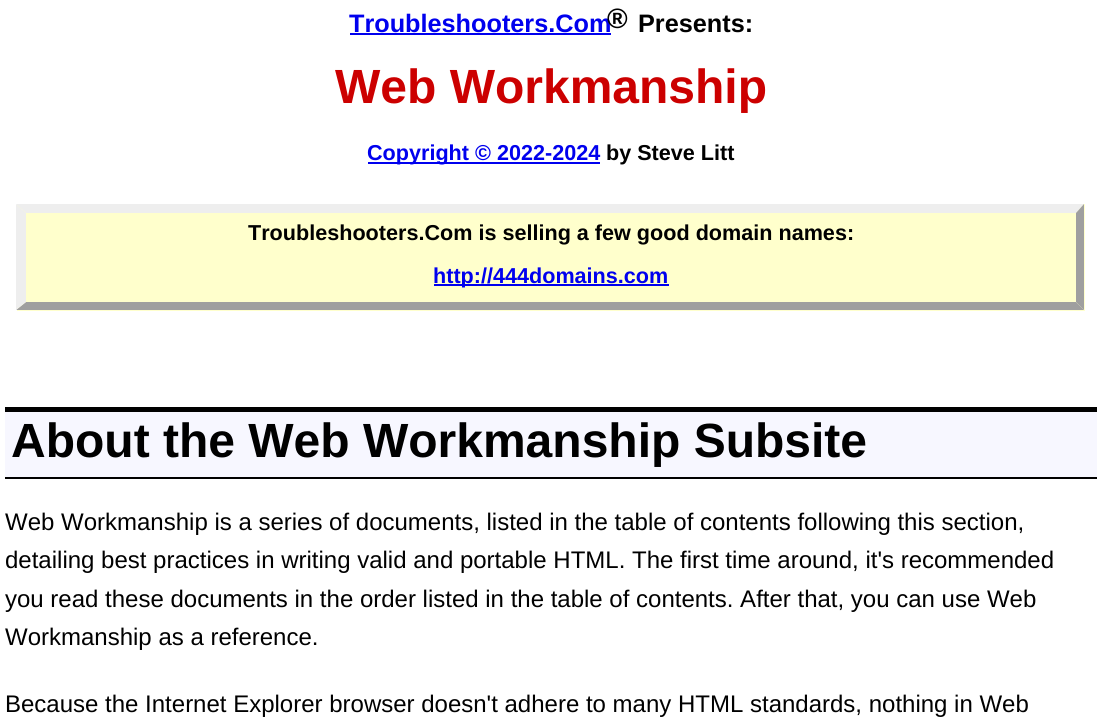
#include <cairo.h>
#include <math.h>
#include <stddef.h>


int main(void) {
    cairo_surface_t *surface = cairo_image_surface_create(CAIRO_FORMAT_RGB24, 1099, 725);
    cairo_t *cr = cairo_create(surface);
    cairo_font_options_t *options = cairo_font_options_create();
    cairo_font_options_set_hint_metrics(options, CAIRO_HINT_METRICS_OFF);
    cairo_font_options_set_hint_style(options, CAIRO_HINT_STYLE_NONE);
    cairo_set_font_options(cr, options);
    cairo_set_miter_limit(cr, 4);
    cairo_set_source_rgb(cr, 1, 1, 1);
    cairo_paint(cr);
    cairo_select_font_face(cr, "Liberation Sans", CAIRO_FONT_SLANT_NORMAL, CAIRO_FONT_WEIGHT_BOLD);
    cairo_set_font_size(cr, 25.25);
    cairo_set_source_rgb(cr, 0, 0, 0.933);
    cairo_move_to(cr, 349, 32);
    cairo_show_text(cr, "Troubleshooters.Com");
    cairo_rectangle(cr, 350, 33, 261, 2);
    cairo_fill(cr);
    cairo_set_font_size(cr, 28);
    cairo_set_source_rgb(cr, 0, 0, 0);
    cairo_move_to(cr, 607, 28);
    cairo_show_text(cr, "®");
    cairo_set_font_size(cr, 25.25);
    cairo_move_to(cr, 638, 32);
    cairo_show_text(cr, "Presents:");
    cairo_set_font_size(cr, 48);
    cairo_set_source_rgb(cr, 0.8, 0, 0);
    cairo_move_to(cr, 335, 103);
    cairo_show_text(cr, "Web Workmanship");
    cairo_set_source_rgb(cr, 0, 0, 0.933);
    cairo_rectangle(cr, 368, 162, 232, 2);
    cairo_fill(cr);
    cairo_set_font_size(cr, 21.6);
    cairo_move_to(cr, 367, 160);
    cairo_show_text(cr, "Copyright © 2022-2024");
    cairo_set_source_rgb(cr, 0, 0, 0);
    cairo_move_to(cr, 606, 160);
    cairo_show_text(cr, "by Steve Litt");
    cairo_set_source_rgb(cr, 1, 1, 0.8);
    cairo_rectangle(cr, 17, 204, 1068, 107);
    cairo_fill(cr);
    cairo_set_source_rgb(cr, 0.933, 0.933, 0.933);
    cairo_new_path(cr);
    cairo_move_to(cr, 16, 204);
    cairo_line_to(cr, 1084, 204);
    cairo_line_to(cr, 1076, 213);
    cairo_line_to(cr, 26, 213);
    cairo_close_path(cr);
    cairo_fill(cr);
    cairo_set_source_rgb(cr, 0.624, 0.624, 0.624);
    cairo_new_path(cr);
    cairo_move_to(cr, 1084, 204);
    cairo_line_to(cr, 1084, 310);
    cairo_line_to(cr, 1076, 302);
    cairo_line_to(cr, 1076, 213);
    cairo_close_path(cr);
    cairo_fill(cr);
    cairo_new_path(cr);
    cairo_move_to(cr, 1084, 310);
    cairo_line_to(cr, 16, 310);
    cairo_line_to(cr, 26, 302);
    cairo_line_to(cr, 1076, 302);
    cairo_close_path(cr);
    cairo_fill(cr);
    cairo_set_source_rgb(cr, 0.933, 0.933, 0.933);
    cairo_new_path(cr);
    cairo_move_to(cr, 16, 310);
    cairo_line_to(cr, 16, 204);
    cairo_line_to(cr, 26, 213);
    cairo_line_to(cr, 26, 302);
    cairo_close_path(cr);
    cairo_fill(cr);
    cairo_set_source_rgb(cr, 0, 0, 0);
    cairo_move_to(cr, 248, 240);
    cairo_show_text(cr, "Troubleshooters.Com is selling a few good domain names:");
    cairo_set_source_rgb(cr, 0, 0, 0.933);
    cairo_rectangle(cr, 434, 284, 235, 2);
    cairo_fill(cr);
    cairo_move_to(cr, 433, 283);
    cairo_show_text(cr, "http://444domains.com");
    cairo_set_source_rgb(cr, 0.965, 0.965, 1);
    cairo_rectangle(cr, 5, 412, 1092, 65);
    cairo_fill(cr);
    cairo_set_source_rgb(cr, 0, 0, 0);
    cairo_rectangle(cr, 5, 407, 1092, 5);
    cairo_fill(cr);
    cairo_rectangle(cr, 5, 477, 1092, 2);
    cairo_fill(cr);
    cairo_set_font_size(cr, 48);
    cairo_move_to(cr, 11, 457);
    cairo_show_text(cr, "About the Web Workmanship Subsite");
    cairo_select_font_face(cr, "Liberation Sans", CAIRO_FONT_SLANT_NORMAL, CAIRO_FONT_WEIGHT_NORMAL);
    cairo_set_font_size(cr, 24);
    cairo_move_to(cr, 5, 530);
    cairo_show_text(cr, "Web Workmanship is a series of documents, listed in the table of contents following this section,");
    cairo_move_to(cr, 5, 568);
    cairo_show_text(cr, "detailing best practices in writing valid and portable HTML. The first time around, it's recommended");
    cairo_move_to(cr, 5, 607);
    cairo_show_text(cr, "you read these documents in the order listed in the table of contents. After that, you can use Web");
    cairo_move_to(cr, 5, 645);
    cairo_show_text(cr, "Workmanship as a reference.");
    cairo_move_to(cr, 5, 712);
    cairo_show_text(cr, "Because the Internet Explorer browser doesn't adhere to many HTML standards, nothing in Web");
    cairo_surface_write_to_png(surface, "page.png");
    cairo_font_options_destroy(options);
    cairo_destroy(cr);
    cairo_surface_destroy(surface);
    return 0;
}
